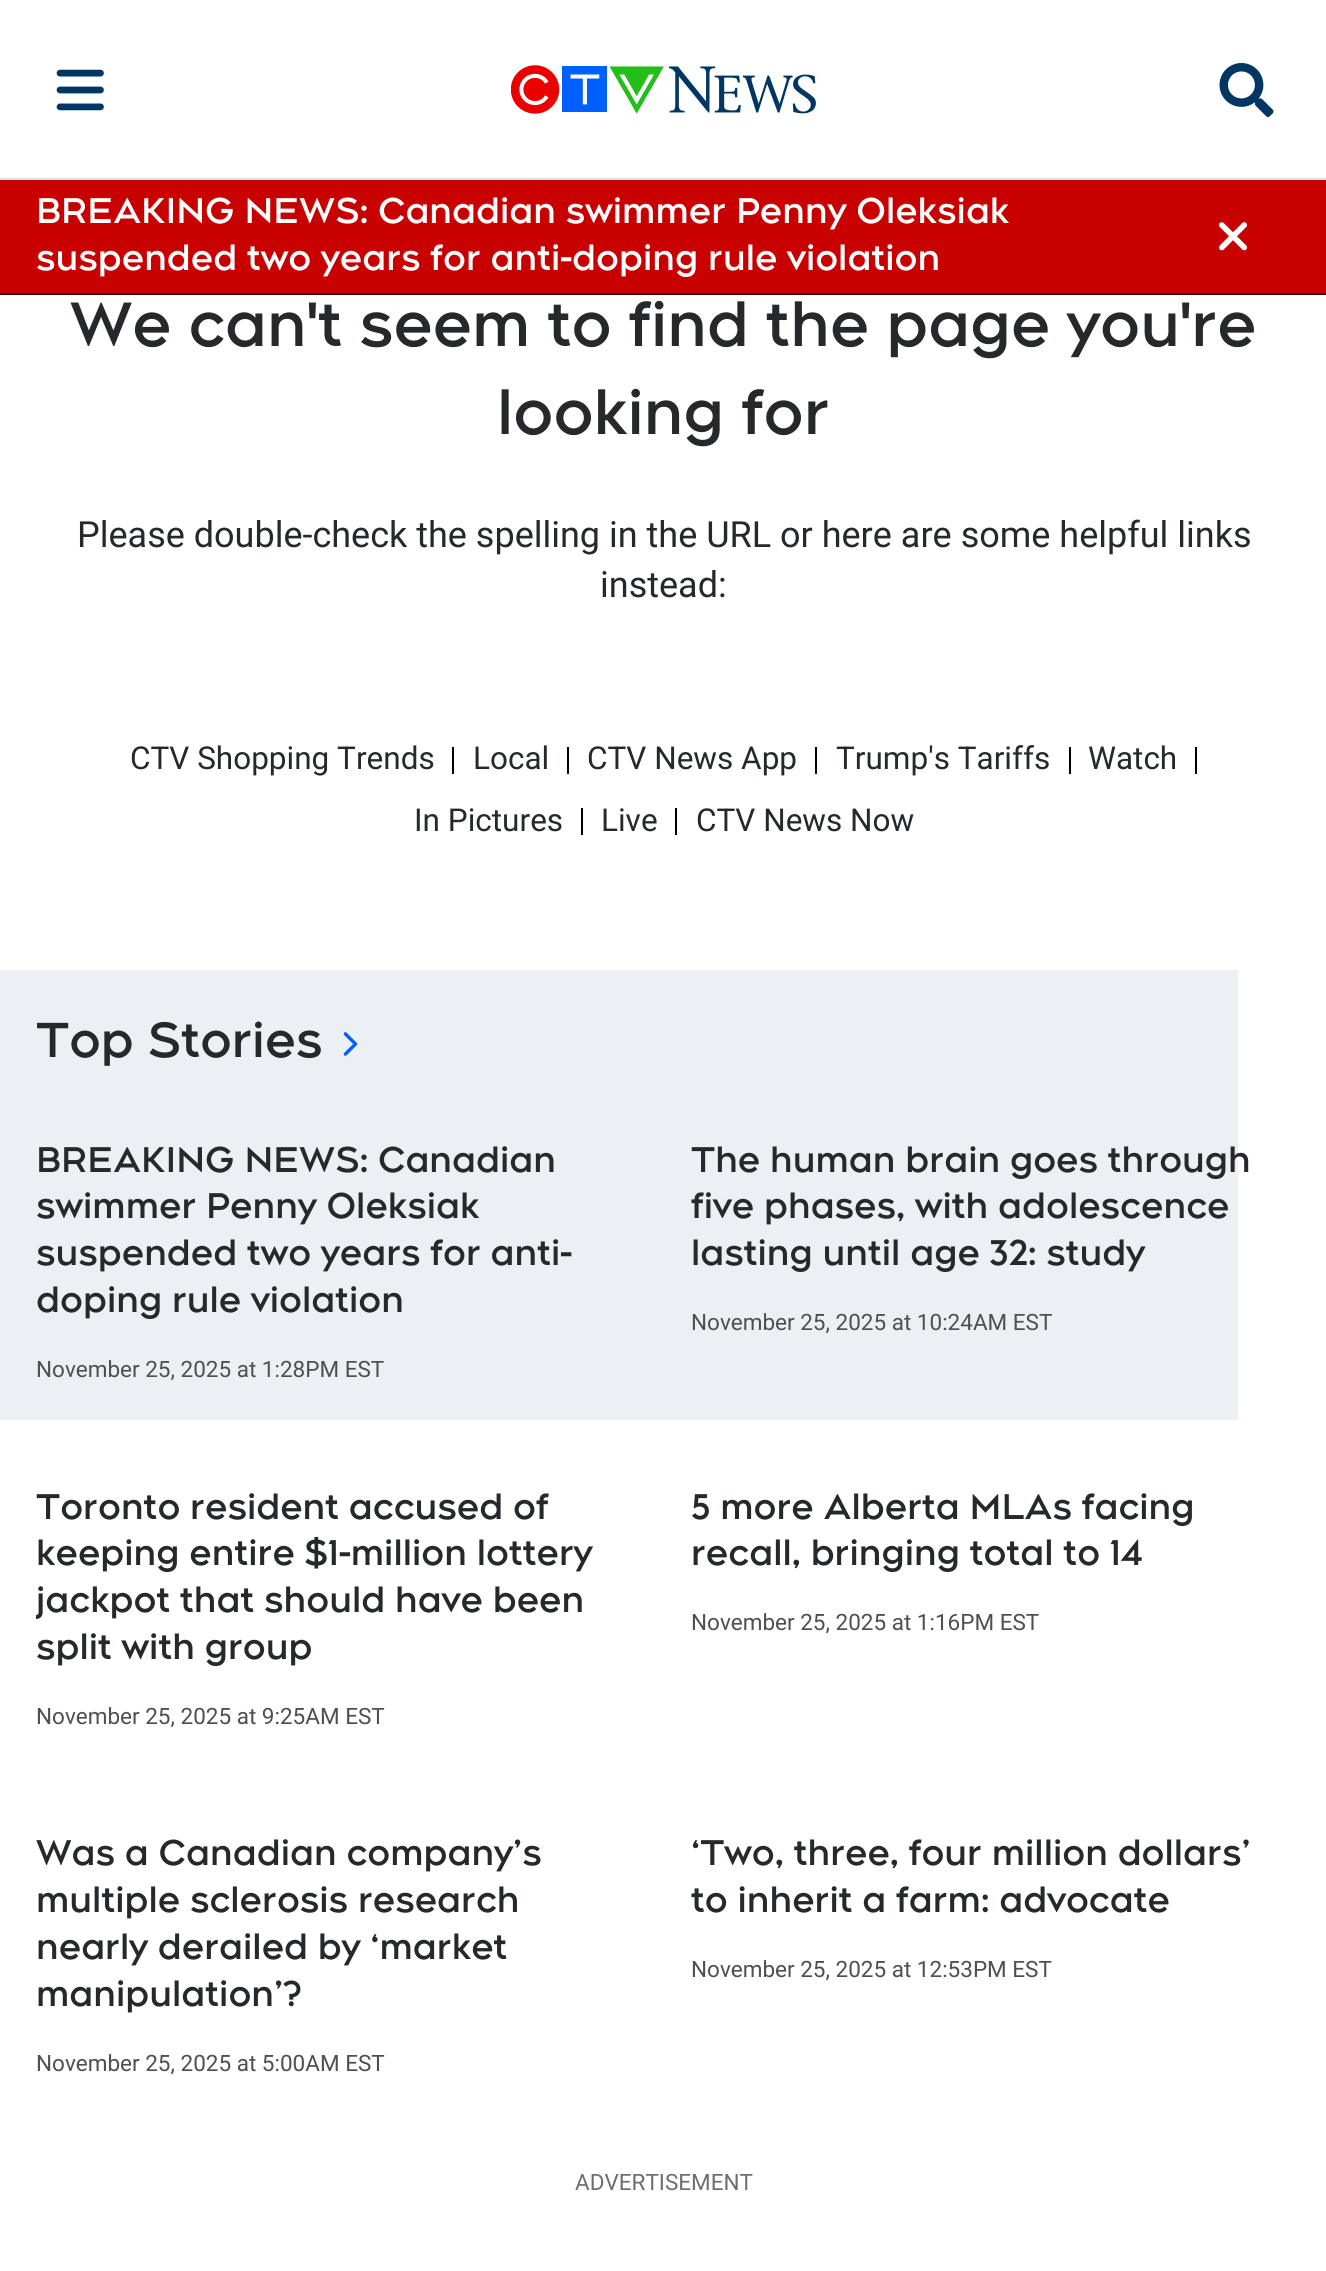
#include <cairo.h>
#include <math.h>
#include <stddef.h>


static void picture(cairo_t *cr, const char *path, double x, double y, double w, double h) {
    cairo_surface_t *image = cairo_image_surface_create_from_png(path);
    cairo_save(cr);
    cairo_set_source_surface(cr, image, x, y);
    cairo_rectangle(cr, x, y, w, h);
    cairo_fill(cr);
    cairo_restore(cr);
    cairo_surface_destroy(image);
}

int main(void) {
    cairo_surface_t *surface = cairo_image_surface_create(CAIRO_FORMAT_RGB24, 1326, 2271);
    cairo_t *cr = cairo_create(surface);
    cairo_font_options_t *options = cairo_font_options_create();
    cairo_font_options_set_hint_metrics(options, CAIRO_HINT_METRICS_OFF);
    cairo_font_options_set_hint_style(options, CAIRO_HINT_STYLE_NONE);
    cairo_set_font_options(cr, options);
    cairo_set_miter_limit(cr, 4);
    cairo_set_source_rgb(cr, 1, 1, 1);
    cairo_paint(cr);
    cairo_set_source_rgb(cr, 0.867, 0.867, 0.867);
    cairo_rectangle(cr, 0, 178, 1326, 2);
    cairo_fill(cr);
    picture(cr, "img1.png", 56, 69, 48, 42);
    picture(cr, "img2.png", 511, 65, 305, 49);
    picture(cr, "img3.png", 1219, 63, 55, 54);
    cairo_set_source_rgb(cr, 0.784, 0, 0);
    cairo_rectangle(cr, 0, 180, 1326, 113);
    cairo_fill(cr);
    cairo_set_source_rgb(cr, 0.216, 0.039, 0);
    cairo_rectangle(cr, 0, 293, 1326, 2);
    cairo_fill(cr);
    cairo_select_font_face(cr, "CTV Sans", CAIRO_FONT_SLANT_NORMAL, CAIRO_FONT_WEIGHT_BOLD);
    cairo_set_font_size(cr, 36);
    cairo_set_source_rgb(cr, 1, 1, 1);
    cairo_move_to(cr, 36, 223);
    cairo_show_text(cr, "BREAKING NEWS: Canadian swimmer Penny Oleksiak");
    cairo_move_to(cr, 36, 270);
    cairo_show_text(cr, "suspended two years for anti-doping rule violation");
    picture(cr, "img4.png", 1219, 222, 28, 29);
    cairo_set_font_size(cr, 63);
    cairo_set_source_rgb(cr, 0.149, 0.161, 0.169);
    cairo_move_to(cr, 70, 346);
    cairo_show_text(cr, "We can't seem to find the page you're");
    cairo_move_to(cr, 497, 434);
    cairo_show_text(cr, "looking for");
    cairo_select_font_face(cr, "Roboto", CAIRO_FONT_SLANT_NORMAL, CAIRO_FONT_WEIGHT_NORMAL);
    cairo_set_font_size(cr, 36);
    cairo_move_to(cr, 77, 547);
    cairo_show_text(cr, "Please double-check the spelling in the URL or here are some helpful links");
    cairo_move_to(cr, 600, 597);
    cairo_show_text(cr, "instead:");
    cairo_set_font_size(cr, 31.5);
    cairo_move_to(cr, 130, 769);
    cairo_show_text(cr, "CTV Shopping Trends");
    cairo_set_source_rgb(cr, 0, 0, 0);
    cairo_rectangle(cr, 452, 747, 2, 27);
    cairo_fill(cr);
    cairo_set_source_rgb(cr, 0.149, 0.161, 0.169);
    cairo_move_to(cr, 473, 769);
    cairo_show_text(cr, "Local");
    cairo_set_source_rgb(cr, 0, 0, 0);
    cairo_rectangle(cr, 567, 747, 2, 27);
    cairo_fill(cr);
    cairo_set_source_rgb(cr, 0.149, 0.161, 0.169);
    cairo_move_to(cr, 587, 769);
    cairo_show_text(cr, "CTV News App");
    cairo_set_source_rgb(cr, 0, 0, 0);
    cairo_rectangle(cr, 815, 747, 2, 27);
    cairo_fill(cr);
    cairo_set_source_rgb(cr, 0.149, 0.161, 0.169);
    cairo_move_to(cr, 836, 769);
    cairo_show_text(cr, "Trump's Tariffs");
    cairo_set_source_rgb(cr, 0, 0, 0);
    cairo_rectangle(cr, 1069, 747, 2, 27);
    cairo_fill(cr);
    cairo_set_source_rgb(cr, 0.149, 0.161, 0.169);
    cairo_move_to(cr, 1088, 769);
    cairo_show_text(cr, "Watch");
    cairo_set_source_rgb(cr, 0, 0, 0);
    cairo_rectangle(cr, 1195, 747, 2, 27);
    cairo_fill(cr);
    cairo_set_source_rgb(cr, 0.149, 0.161, 0.169);
    cairo_move_to(cr, 414, 831);
    cairo_show_text(cr, "In Pictures");
    cairo_set_source_rgb(cr, 0, 0, 0);
    cairo_rectangle(cr, 581, 808, 2, 27);
    cairo_fill(cr);
    cairo_set_source_rgb(cr, 0.149, 0.161, 0.169);
    cairo_move_to(cr, 601, 831);
    cairo_show_text(cr, "Live");
    cairo_set_source_rgb(cr, 0, 0, 0);
    cairo_rectangle(cr, 675, 808, 2, 27);
    cairo_fill(cr);
    cairo_set_source_rgb(cr, 0.149, 0.161, 0.169);
    cairo_move_to(cr, 696, 831);
    cairo_show_text(cr, "CTV News Now");
    cairo_set_source_rgb(cr, 0.925, 0.937, 0.953);
    cairo_rectangle(cr, 0, 970, 1238, 450);
    cairo_fill(cr);
    cairo_select_font_face(cr, "CTV Sans", CAIRO_FONT_SLANT_NORMAL, CAIRO_FONT_WEIGHT_BOLD);
    cairo_set_font_size(cr, 49.5);
    cairo_set_source_rgb(cr, 0.149, 0.161, 0.169);
    cairo_move_to(cr, 36, 1057);
    cairo_show_text(cr, "Top Stories");
    picture(cr, "img5.png", 343, 1032, 15, 24);
    cairo_set_font_size(cr, 36);
    cairo_move_to(cr, 36, 1172);
    cairo_show_text(cr, "BREAKING NEWS: Canadian");
    cairo_move_to(cr, 36, 1218);
    cairo_show_text(cr, "swimmer Penny Oleksiak");
    cairo_move_to(cr, 36, 1265);
    cairo_show_text(cr, "suspended two years for anti-");
    cairo_move_to(cr, 36, 1312);
    cairo_show_text(cr, "doping rule violation");
    cairo_select_font_face(cr, "Roboto", CAIRO_FONT_SLANT_NORMAL, CAIRO_FONT_WEIGHT_NORMAL);
    cairo_set_font_size(cr, 22.5);
    cairo_set_source_rgb(cr, 0.31, 0.31, 0.31);
    cairo_move_to(cr, 36, 1377);
    cairo_show_text(cr, "November 25, 2025 at 1:28PM EST");
    cairo_select_font_face(cr, "CTV Sans", CAIRO_FONT_SLANT_NORMAL, CAIRO_FONT_WEIGHT_BOLD);
    cairo_set_font_size(cr, 36);
    cairo_set_source_rgb(cr, 0.149, 0.161, 0.169);
    cairo_move_to(cr, 691, 1172);
    cairo_show_text(cr, "The human brain goes through");
    cairo_move_to(cr, 691, 1218);
    cairo_show_text(cr, "five phases, with adolescence");
    cairo_move_to(cr, 691, 1265);
    cairo_show_text(cr, "lasting until age 32: study");
    cairo_select_font_face(cr, "Roboto", CAIRO_FONT_SLANT_NORMAL, CAIRO_FONT_WEIGHT_NORMAL);
    cairo_set_font_size(cr, 22.5);
    cairo_set_source_rgb(cr, 0.31, 0.31, 0.31);
    cairo_move_to(cr, 691, 1330);
    cairo_show_text(cr, "November 25, 2025 at 10:24AM EST");
    cairo_select_font_face(cr, "CTV Sans", CAIRO_FONT_SLANT_NORMAL, CAIRO_FONT_WEIGHT_BOLD);
    cairo_set_font_size(cr, 36);
    cairo_set_source_rgb(cr, 0.149, 0.161, 0.169);
    cairo_move_to(cr, 36, 1519);
    cairo_show_text(cr, "Toronto resident accused of");
    cairo_move_to(cr, 36, 1565);
    cairo_show_text(cr, "keeping entire $1-million lottery");
    cairo_save(cr);
    cairo_rectangle(cr, 36, 1485, 601, 187);
    cairo_clip(cr);
    cairo_move_to(cr, 36, 1612);
    cairo_show_text(cr, "jackpot that should have been");
    cairo_restore(cr);
    cairo_move_to(cr, 36, 1659);
    cairo_show_text(cr, "split with group");
    cairo_select_font_face(cr, "Roboto", CAIRO_FONT_SLANT_NORMAL, CAIRO_FONT_WEIGHT_NORMAL);
    cairo_set_font_size(cr, 22.5);
    cairo_set_source_rgb(cr, 0.31, 0.31, 0.31);
    cairo_move_to(cr, 36, 1724);
    cairo_show_text(cr, "November 25, 2025 at 9:25AM EST");
    cairo_select_font_face(cr, "CTV Sans", CAIRO_FONT_SLANT_NORMAL, CAIRO_FONT_WEIGHT_BOLD);
    cairo_set_font_size(cr, 36);
    cairo_set_source_rgb(cr, 0.149, 0.161, 0.169);
    cairo_move_to(cr, 691, 1519);
    cairo_show_text(cr, "5 more Alberta MLAs facing");
    cairo_move_to(cr, 691, 1565);
    cairo_show_text(cr, "recall, bringing total to 14");
    cairo_select_font_face(cr, "Roboto", CAIRO_FONT_SLANT_NORMAL, CAIRO_FONT_WEIGHT_NORMAL);
    cairo_set_font_size(cr, 22.5);
    cairo_set_source_rgb(cr, 0.31, 0.31, 0.31);
    cairo_move_to(cr, 691, 1630);
    cairo_show_text(cr, "November 25, 2025 at 1:16PM EST");
    cairo_select_font_face(cr, "CTV Sans", CAIRO_FONT_SLANT_NORMAL, CAIRO_FONT_WEIGHT_BOLD);
    cairo_set_font_size(cr, 36);
    cairo_set_source_rgb(cr, 0.149, 0.161, 0.169);
    cairo_move_to(cr, 36, 1865);
    cairo_show_text(cr, "Was a Canadian company’s");
    cairo_move_to(cr, 36, 1912);
    cairo_show_text(cr, "multiple sclerosis research");
    cairo_move_to(cr, 36, 1959);
    cairo_show_text(cr, "nearly derailed by ‘market");
    cairo_move_to(cr, 36, 2006);
    cairo_show_text(cr, "manipulation’?");
    cairo_select_font_face(cr, "Roboto", CAIRO_FONT_SLANT_NORMAL, CAIRO_FONT_WEIGHT_NORMAL);
    cairo_set_font_size(cr, 22.5);
    cairo_set_source_rgb(cr, 0.31, 0.31, 0.31);
    cairo_move_to(cr, 36, 2071);
    cairo_show_text(cr, "November 25, 2025 at 5:00AM EST");
    cairo_select_font_face(cr, "CTV Sans", CAIRO_FONT_SLANT_NORMAL, CAIRO_FONT_WEIGHT_BOLD);
    cairo_set_font_size(cr, 36);
    cairo_set_source_rgb(cr, 0.149, 0.161, 0.169);
    cairo_move_to(cr, 691, 1865);
    cairo_show_text(cr, "‘Two, three, four million dollars’");
    cairo_move_to(cr, 691, 1912);
    cairo_show_text(cr, "to inherit a farm: advocate");
    cairo_select_font_face(cr, "Roboto", CAIRO_FONT_SLANT_NORMAL, CAIRO_FONT_WEIGHT_NORMAL);
    cairo_set_font_size(cr, 22.5);
    cairo_set_source_rgb(cr, 0.31, 0.31, 0.31);
    cairo_move_to(cr, 691, 1977);
    cairo_show_text(cr, "November 25, 2025 at 12:53PM EST");
    cairo_set_source_rgb(cr, 0.431, 0.431, 0.431);
    cairo_move_to(cr, 575, 2190);
    cairo_show_text(cr, "ADVERTISEMENT");
    cairo_surface_write_to_png(surface, "page.png");
    cairo_font_options_destroy(options);
    cairo_destroy(cr);
    cairo_surface_destroy(surface);
    return 0;
}
